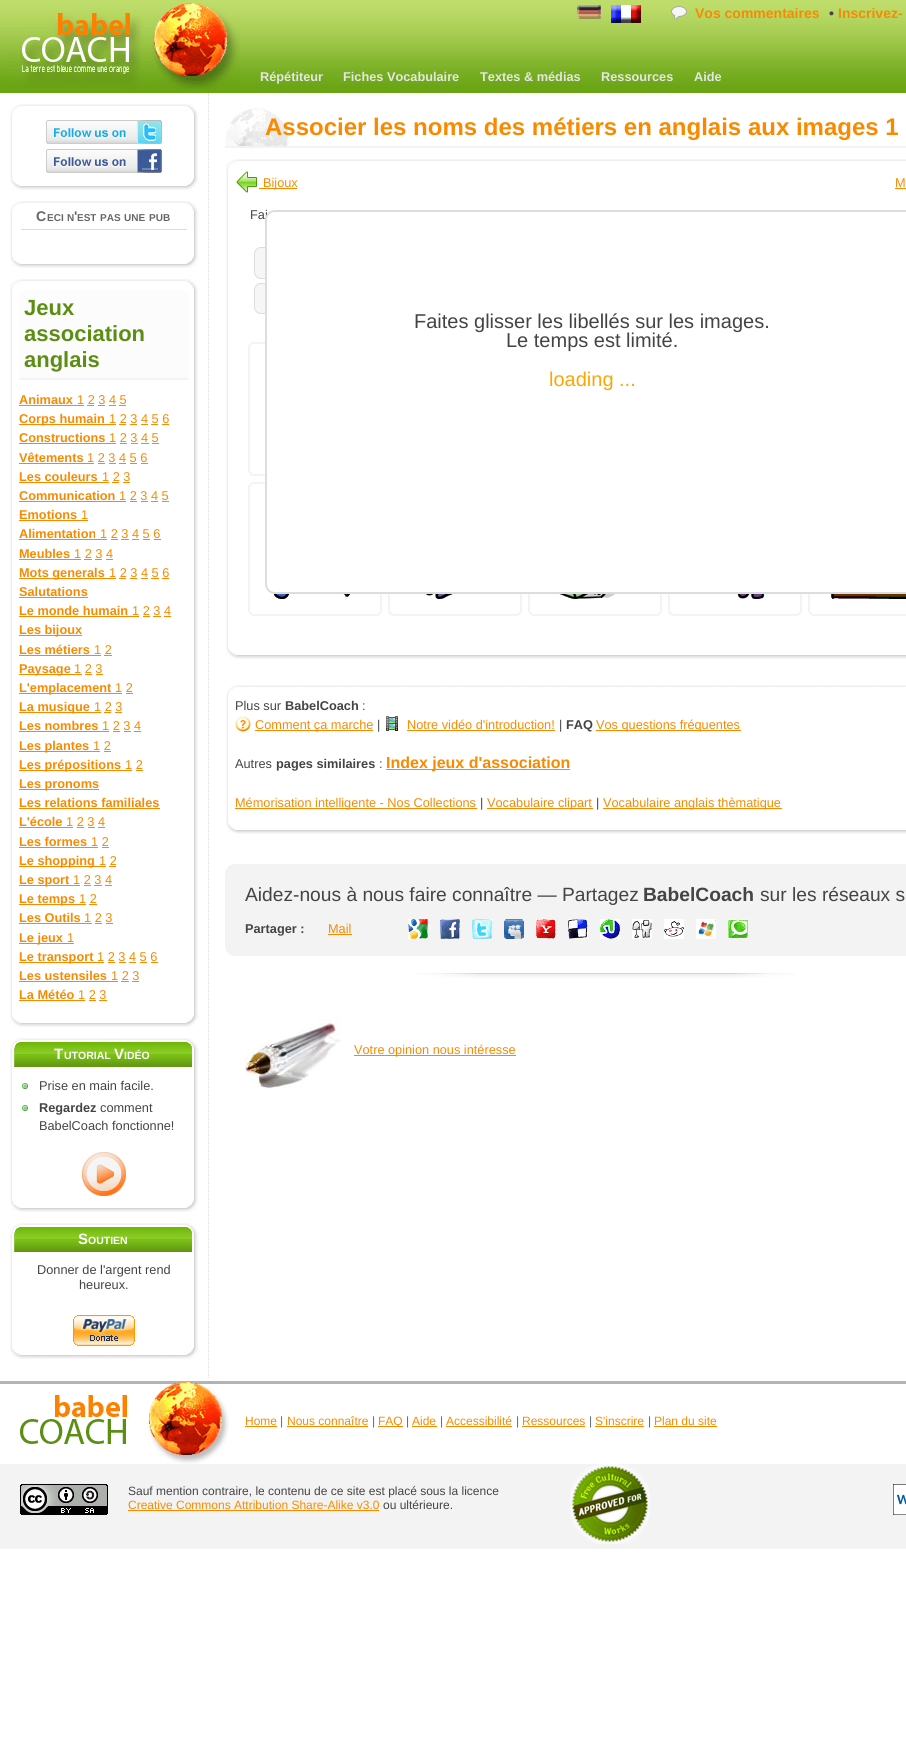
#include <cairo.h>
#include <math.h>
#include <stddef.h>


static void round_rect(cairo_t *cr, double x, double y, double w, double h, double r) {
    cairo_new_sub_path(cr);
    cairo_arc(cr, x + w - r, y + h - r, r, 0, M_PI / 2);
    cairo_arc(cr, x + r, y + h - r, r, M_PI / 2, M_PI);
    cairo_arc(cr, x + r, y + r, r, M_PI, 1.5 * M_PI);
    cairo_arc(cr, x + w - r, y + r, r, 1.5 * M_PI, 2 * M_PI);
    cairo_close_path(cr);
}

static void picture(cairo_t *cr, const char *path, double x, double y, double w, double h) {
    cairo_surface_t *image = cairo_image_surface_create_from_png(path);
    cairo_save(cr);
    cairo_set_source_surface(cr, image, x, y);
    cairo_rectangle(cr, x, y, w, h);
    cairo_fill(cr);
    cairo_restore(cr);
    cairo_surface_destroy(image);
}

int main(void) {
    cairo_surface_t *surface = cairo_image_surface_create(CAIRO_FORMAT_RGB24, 906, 1764);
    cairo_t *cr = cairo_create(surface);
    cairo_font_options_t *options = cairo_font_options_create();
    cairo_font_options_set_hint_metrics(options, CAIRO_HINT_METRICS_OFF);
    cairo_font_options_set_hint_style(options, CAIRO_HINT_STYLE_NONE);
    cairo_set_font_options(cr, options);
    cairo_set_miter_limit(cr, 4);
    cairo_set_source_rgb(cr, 1, 1, 1);
    cairo_paint(cr);
    picture(cr, "img1.png", 0, 0, 906, 93);
    picture(cr, "img2.png", 0, 3, 240, 86);
    picture(cr, "img3.png", 577, 5, 24, 14);
    picture(cr, "img4.png", 611, 5, 30, 18);
    picture(cr, "img5.png", 671, 6, 16, 14);
    cairo_select_font_face(cr, "Liberation Sans", CAIRO_FONT_SLANT_NORMAL, CAIRO_FONT_WEIGHT_BOLD);
    cairo_set_font_size(cr, 14);
    cairo_set_source_rgb(cr, 0.976, 0.541, 0);
    cairo_move_to(cr, 695, 18);
    cairo_show_text(cr, "Vos commentaires");
    cairo_set_source_rgb(cr, 0.267, 0.267, 0.267);
    cairo_move_to(cr, 829, 18);
    cairo_show_text(cr, "•");
    cairo_set_source_rgb(cr, 0.976, 0.541, 0);
    cairo_move_to(cr, 838, 18);
    cairo_show_text(cr, "Inscrivez-");
    cairo_set_font_size(cr, 12.75);
    cairo_set_source_rgb(cr, 0.898, 0.898, 0.898);
    cairo_move_to(cr, 260, 81);
    cairo_show_text(cr, "Répétiteur");
    cairo_move_to(cr, 343, 81);
    cairo_show_text(cr, "Fiches Vocabulaire");
    cairo_move_to(cr, 480, 81);
    cairo_show_text(cr, "Textes & médias");
    cairo_move_to(cr, 601, 81);
    cairo_show_text(cr, "Ressources");
    cairo_move_to(cr, 694, 81);
    cairo_show_text(cr, "Aide");
    cairo_new_path(cr);
    cairo_move_to(cr, 208.5, 93);
    cairo_line_to(cr, 208.5, 1379);
    cairo_set_source_rgb(cr, 0.867, 0.867, 0.867);
    cairo_set_line_width(cr, 1);
    cairo_set_dash(cr, (double[]){1, 1}, 2, 0);
    cairo_stroke(cr);
    picture(cr, "img6.png", 10, 104, 176, 11);
    picture(cr, "img7.png", 186, 104, 13, 11);
    picture(cr, "img8.png", 10, 115, 2, 63);
    picture(cr, "img9.png", 194, 115, 4, 63);
    picture(cr, "img10.png", 46, 120, 116, 24);
    picture(cr, "img11.png", 46, 149, 116, 24);
    picture(cr, "img12.png", 10, 178, 176, 12);
    picture(cr, "img13.png", 186, 178, 13, 12);
    picture(cr, "img14.png", 10, 201, 177, 29);
    picture(cr, "img15.png", 187, 201, 12, 29);
    cairo_rectangle(cr, 21, 229, 166, 1);
    cairo_fill(cr);
    cairo_set_font_size(cr, 14);
    cairo_set_source_rgb(cr, 0.4, 0.4, 0.4);
    cairo_move_to(cr, 36, 221);
    cairo_show_text(cr, "C");
    cairo_move_to(cr, 74, 221);
    cairo_show_text(cr, "'");
    cairo_set_font_size(cr, 10);
    cairo_move_to(cr, 47, 221);
    cairo_show_text(cr, "ECI");
    cairo_move_to(cr, 67, 221);
    cairo_show_text(cr, "N");
    cairo_move_to(cr, 77, 221);
    cairo_show_text(cr, "EST");
    cairo_move_to(cr, 100, 221);
    cairo_show_text(cr, "PAS");
    cairo_move_to(cr, 124, 221);
    cairo_show_text(cr, "UNE");
    cairo_move_to(cr, 149, 221);
    cairo_show_text(cr, "PUB");
    picture(cr, "img16.png", 10, 230, 2, 26);
    picture(cr, "img17.png", 194, 230, 4, 26);
    picture(cr, "img12.png", 10, 256, 176, 12);
    picture(cr, "img13.png", 186, 256, 13, 12);
    picture(cr, "img6.png", 10, 279, 176, 11);
    picture(cr, "img7.png", 186, 279, 13, 11);
    picture(cr, "img18.png", 10, 290, 2, 725);
    picture(cr, "img19.png", 194, 290, 4, 725);
    cairo_set_source_rgb(cr, 0.988, 0.988, 0.988);
    cairo_new_path(cr);
    cairo_move_to(cr, 26, 290);
    cairo_line_to(cr, 182, 290);
    cairo_curve_to(cr, 186, 290, 189, 293, 189, 297);
    cairo_line_to(cr, 189, 380);
    cairo_line_to(cr, 19, 380);
    cairo_line_to(cr, 19, 297);
    cairo_curve_to(cr, 19, 293, 22, 290, 26, 290);
    cairo_close_path(cr);
    cairo_fill(cr);
    cairo_set_source_rgb(cr, 0.953, 0.953, 0.953);
    cairo_rectangle(cr, 19, 378, 170, 2);
    cairo_fill(cr);
    cairo_set_font_size(cr, 22);
    cairo_set_source_rgb(cr, 0.361, 0.557, 0.075);
    cairo_move_to(cr, 24, 315);
    cairo_show_text(cr, "Jeux");
    cairo_move_to(cr, 24, 341);
    cairo_show_text(cr, "association");
    cairo_move_to(cr, 24, 367);
    cairo_show_text(cr, "anglais");
    cairo_set_font_size(cr, 12.75);
    cairo_set_source_rgb(cr, 0.976, 0.541, 0);
    cairo_move_to(cr, 19, 404);
    cairo_show_text(cr, "Animaux");
    cairo_select_font_face(cr, "Liberation Sans", CAIRO_FONT_SLANT_NORMAL, CAIRO_FONT_WEIGHT_NORMAL);
    cairo_move_to(cr, 77, 404);
    cairo_show_text(cr, "1 2 3 4 5");
    cairo_rectangle(cr, 19, 405, 65, 1);
    cairo_fill(cr);
    cairo_rectangle(cr, 87, 405, 7, 1);
    cairo_fill(cr);
    cairo_rectangle(cr, 98, 405, 7, 1);
    cairo_fill(cr);
    cairo_rectangle(cr, 109, 405, 7, 1);
    cairo_fill(cr);
    cairo_rectangle(cr, 119, 405, 7, 1);
    cairo_fill(cr);
    cairo_rectangle(cr, 19, 424, 97, 1);
    cairo_fill(cr);
    cairo_select_font_face(cr, "Liberation Sans", CAIRO_FONT_SLANT_NORMAL, CAIRO_FONT_WEIGHT_BOLD);
    cairo_move_to(cr, 19, 423);
    cairo_show_text(cr, "Corps humain");
    cairo_select_font_face(cr, "Liberation Sans", CAIRO_FONT_SLANT_NORMAL, CAIRO_FONT_WEIGHT_NORMAL);
    cairo_move_to(cr, 109, 423);
    cairo_show_text(cr, "1 2 3 4 5 6");
    cairo_rectangle(cr, 119, 424, 7, 1);
    cairo_fill(cr);
    cairo_rectangle(cr, 130, 424, 7, 1);
    cairo_fill(cr);
    cairo_rectangle(cr, 141, 424, 7, 1);
    cairo_fill(cr);
    cairo_rectangle(cr, 151, 424, 7, 1);
    cairo_fill(cr);
    cairo_rectangle(cr, 162, 424, 7, 1);
    cairo_fill(cr);
    cairo_select_font_face(cr, "Liberation Sans", CAIRO_FONT_SLANT_NORMAL, CAIRO_FONT_WEIGHT_BOLD);
    cairo_move_to(cr, 19, 442);
    cairo_show_text(cr, "Constructions");
    cairo_select_font_face(cr, "Liberation Sans", CAIRO_FONT_SLANT_NORMAL, CAIRO_FONT_WEIGHT_NORMAL);
    cairo_move_to(cr, 109, 442);
    cairo_show_text(cr, "1 2 3 4 5");
    cairo_rectangle(cr, 19, 443, 97, 1);
    cairo_fill(cr);
    cairo_rectangle(cr, 120, 443, 7, 1);
    cairo_fill(cr);
    cairo_rectangle(cr, 131, 443, 7, 1);
    cairo_fill(cr);
    cairo_rectangle(cr, 141, 443, 8, 1);
    cairo_fill(cr);
    cairo_rectangle(cr, 152, 443, 7, 1);
    cairo_fill(cr);
    cairo_select_font_face(cr, "Liberation Sans", CAIRO_FONT_SLANT_NORMAL, CAIRO_FONT_WEIGHT_BOLD);
    cairo_move_to(cr, 19, 462);
    cairo_show_text(cr, "Vêtements");
    cairo_select_font_face(cr, "Liberation Sans", CAIRO_FONT_SLANT_NORMAL, CAIRO_FONT_WEIGHT_NORMAL);
    cairo_move_to(cr, 87, 462);
    cairo_show_text(cr, "1 2 3 4 5 6");
    cairo_rectangle(cr, 19, 463, 75, 1);
    cairo_fill(cr);
    cairo_rectangle(cr, 98, 463, 7, 1);
    cairo_fill(cr);
    cairo_rectangle(cr, 109, 463, 7, 1);
    cairo_fill(cr);
    cairo_rectangle(cr, 119, 463, 7, 1);
    cairo_fill(cr);
    cairo_rectangle(cr, 130, 463, 7, 1);
    cairo_fill(cr);
    cairo_rectangle(cr, 141, 463, 7, 1);
    cairo_fill(cr);
    cairo_select_font_face(cr, "Liberation Sans", CAIRO_FONT_SLANT_NORMAL, CAIRO_FONT_WEIGHT_BOLD);
    cairo_move_to(cr, 19, 481);
    cairo_show_text(cr, "Les couleurs");
    cairo_select_font_face(cr, "Liberation Sans", CAIRO_FONT_SLANT_NORMAL, CAIRO_FONT_WEIGHT_NORMAL);
    cairo_move_to(cr, 102, 481);
    cairo_show_text(cr, "1 2 3");
    cairo_rectangle(cr, 19, 482, 90, 1);
    cairo_fill(cr);
    cairo_rectangle(cr, 112, 482, 7, 1);
    cairo_fill(cr);
    cairo_rectangle(cr, 123, 482, 7, 1);
    cairo_fill(cr);
    cairo_select_font_face(cr, "Liberation Sans", CAIRO_FONT_SLANT_NORMAL, CAIRO_FONT_WEIGHT_BOLD);
    cairo_move_to(cr, 19, 500);
    cairo_show_text(cr, "Communication");
    cairo_select_font_face(cr, "Liberation Sans", CAIRO_FONT_SLANT_NORMAL, CAIRO_FONT_WEIGHT_NORMAL);
    cairo_move_to(cr, 119, 500);
    cairo_show_text(cr, "1 2 3 4 5");
    cairo_rectangle(cr, 19, 501, 107, 1);
    cairo_fill(cr);
    cairo_rectangle(cr, 130, 501, 7, 1);
    cairo_fill(cr);
    cairo_rectangle(cr, 141, 501, 7, 1);
    cairo_fill(cr);
    cairo_rectangle(cr, 151, 501, 7, 1);
    cairo_fill(cr);
    cairo_rectangle(cr, 162, 501, 7, 1);
    cairo_fill(cr);
    cairo_select_font_face(cr, "Liberation Sans", CAIRO_FONT_SLANT_NORMAL, CAIRO_FONT_WEIGHT_BOLD);
    cairo_move_to(cr, 19, 519);
    cairo_show_text(cr, "Emotions");
    cairo_rectangle(cr, 19, 520, 69, 1);
    cairo_fill(cr);
    cairo_select_font_face(cr, "Liberation Sans", CAIRO_FONT_SLANT_NORMAL, CAIRO_FONT_WEIGHT_NORMAL);
    cairo_move_to(cr, 81, 519);
    cairo_show_text(cr, "1");
    cairo_select_font_face(cr, "Liberation Sans", CAIRO_FONT_SLANT_NORMAL, CAIRO_FONT_WEIGHT_BOLD);
    cairo_move_to(cr, 19, 538);
    cairo_show_text(cr, "Alimentation");
    cairo_select_font_face(cr, "Liberation Sans", CAIRO_FONT_SLANT_NORMAL, CAIRO_FONT_WEIGHT_NORMAL);
    cairo_move_to(cr, 100, 538);
    cairo_show_text(cr, "1 2 3 4 5 6");
    cairo_rectangle(cr, 19, 539, 88, 1);
    cairo_fill(cr);
    cairo_rectangle(cr, 111, 539, 7, 1);
    cairo_fill(cr);
    cairo_rectangle(cr, 121, 539, 8, 1);
    cairo_fill(cr);
    cairo_rectangle(cr, 132, 539, 7, 1);
    cairo_fill(cr);
    cairo_rectangle(cr, 143, 539, 7, 1);
    cairo_fill(cr);
    cairo_rectangle(cr, 154, 539, 7, 1);
    cairo_fill(cr);
    cairo_select_font_face(cr, "Liberation Sans", CAIRO_FONT_SLANT_NORMAL, CAIRO_FONT_WEIGHT_BOLD);
    cairo_move_to(cr, 19, 558);
    cairo_show_text(cr, "Meubles");
    cairo_select_font_face(cr, "Liberation Sans", CAIRO_FONT_SLANT_NORMAL, CAIRO_FONT_WEIGHT_NORMAL);
    cairo_move_to(cr, 74, 558);
    cairo_show_text(cr, "1 2 3 4");
    cairo_rectangle(cr, 19, 559, 62, 1);
    cairo_fill(cr);
    cairo_rectangle(cr, 84, 559, 8, 1);
    cairo_fill(cr);
    cairo_rectangle(cr, 95, 559, 7, 1);
    cairo_fill(cr);
    cairo_rectangle(cr, 106, 559, 7, 1);
    cairo_fill(cr);
    cairo_rectangle(cr, 19, 578, 97, 1);
    cairo_fill(cr);
    cairo_select_font_face(cr, "Liberation Sans", CAIRO_FONT_SLANT_NORMAL, CAIRO_FONT_WEIGHT_BOLD);
    cairo_move_to(cr, 19, 577);
    cairo_show_text(cr, "Mots generals");
    cairo_select_font_face(cr, "Liberation Sans", CAIRO_FONT_SLANT_NORMAL, CAIRO_FONT_WEIGHT_NORMAL);
    cairo_move_to(cr, 109, 577);
    cairo_show_text(cr, "1 2 3 4 5 6");
    cairo_rectangle(cr, 119, 578, 7, 1);
    cairo_fill(cr);
    cairo_rectangle(cr, 130, 578, 7, 1);
    cairo_fill(cr);
    cairo_rectangle(cr, 141, 578, 7, 1);
    cairo_fill(cr);
    cairo_rectangle(cr, 151, 578, 8, 1);
    cairo_fill(cr);
    cairo_rectangle(cr, 162, 578, 7, 1);
    cairo_fill(cr);
    cairo_select_font_face(cr, "Liberation Sans", CAIRO_FONT_SLANT_NORMAL, CAIRO_FONT_WEIGHT_BOLD);
    cairo_move_to(cr, 19, 596);
    cairo_show_text(cr, "Salutations");
    cairo_rectangle(cr, 19, 597, 69, 1);
    cairo_fill(cr);
    cairo_move_to(cr, 19, 615);
    cairo_show_text(cr, "Le monde humain");
    cairo_select_font_face(cr, "Liberation Sans", CAIRO_FONT_SLANT_NORMAL, CAIRO_FONT_WEIGHT_NORMAL);
    cairo_move_to(cr, 132, 615);
    cairo_show_text(cr, "1 2 3 4");
    cairo_rectangle(cr, 19, 616, 120, 1);
    cairo_fill(cr);
    cairo_rectangle(cr, 143, 616, 7, 1);
    cairo_fill(cr);
    cairo_rectangle(cr, 153, 616, 8, 1);
    cairo_fill(cr);
    cairo_rectangle(cr, 164, 616, 7, 1);
    cairo_fill(cr);
    cairo_rectangle(cr, 19, 635, 63, 1);
    cairo_fill(cr);
    cairo_select_font_face(cr, "Liberation Sans", CAIRO_FONT_SLANT_NORMAL, CAIRO_FONT_WEIGHT_BOLD);
    cairo_move_to(cr, 19, 634);
    cairo_show_text(cr, "Les bijoux");
    cairo_move_to(cr, 19, 654);
    cairo_show_text(cr, "Les métiers");
    cairo_rectangle(cr, 19, 655, 82, 1);
    cairo_fill(cr);
    cairo_select_font_face(cr, "Liberation Sans", CAIRO_FONT_SLANT_NORMAL, CAIRO_FONT_WEIGHT_NORMAL);
    cairo_move_to(cr, 94, 654);
    cairo_show_text(cr, "1 2");
    cairo_rectangle(cr, 104, 655, 8, 1);
    cairo_fill(cr);
    cairo_rectangle(cr, 19, 674, 63, 1);
    cairo_fill(cr);
    cairo_select_font_face(cr, "Liberation Sans", CAIRO_FONT_SLANT_NORMAL, CAIRO_FONT_WEIGHT_BOLD);
    cairo_move_to(cr, 19, 673);
    cairo_show_text(cr, "Paysage");
    cairo_select_font_face(cr, "Liberation Sans", CAIRO_FONT_SLANT_NORMAL, CAIRO_FONT_WEIGHT_NORMAL);
    cairo_move_to(cr, 74, 673);
    cairo_show_text(cr, "1 2 3");
    cairo_rectangle(cr, 85, 674, 7, 1);
    cairo_fill(cr);
    cairo_rectangle(cr, 96, 674, 7, 1);
    cairo_fill(cr);
    cairo_rectangle(cr, 19, 693, 103, 1);
    cairo_fill(cr);
    cairo_select_font_face(cr, "Liberation Sans", CAIRO_FONT_SLANT_NORMAL, CAIRO_FONT_WEIGHT_BOLD);
    cairo_move_to(cr, 19, 692);
    cairo_show_text(cr, "L'emplacement");
    cairo_select_font_face(cr, "Liberation Sans", CAIRO_FONT_SLANT_NORMAL, CAIRO_FONT_WEIGHT_NORMAL);
    cairo_move_to(cr, 115, 692);
    cairo_show_text(cr, "1 2");
    cairo_rectangle(cr, 126, 693, 7, 1);
    cairo_fill(cr);
    cairo_rectangle(cr, 19, 712, 82, 1);
    cairo_fill(cr);
    cairo_select_font_face(cr, "Liberation Sans", CAIRO_FONT_SLANT_NORMAL, CAIRO_FONT_WEIGHT_BOLD);
    cairo_move_to(cr, 19, 711);
    cairo_show_text(cr, "La musique");
    cairo_select_font_face(cr, "Liberation Sans", CAIRO_FONT_SLANT_NORMAL, CAIRO_FONT_WEIGHT_NORMAL);
    cairo_move_to(cr, 94, 711);
    cairo_show_text(cr, "1 2 3");
    cairo_rectangle(cr, 104, 712, 7, 1);
    cairo_fill(cr);
    cairo_rectangle(cr, 115, 712, 7, 1);
    cairo_fill(cr);
    cairo_select_font_face(cr, "Liberation Sans", CAIRO_FONT_SLANT_NORMAL, CAIRO_FONT_WEIGHT_BOLD);
    cairo_move_to(cr, 19, 730);
    cairo_show_text(cr, "Les nombres");
    cairo_select_font_face(cr, "Liberation Sans", CAIRO_FONT_SLANT_NORMAL, CAIRO_FONT_WEIGHT_NORMAL);
    cairo_move_to(cr, 102, 730);
    cairo_show_text(cr, "1 2 3 4");
    cairo_rectangle(cr, 19, 731, 90, 1);
    cairo_fill(cr);
    cairo_rectangle(cr, 113, 731, 7, 1);
    cairo_fill(cr);
    cairo_rectangle(cr, 124, 731, 7, 1);
    cairo_fill(cr);
    cairo_rectangle(cr, 134, 731, 7, 1);
    cairo_fill(cr);
    cairo_rectangle(cr, 19, 751, 81, 1);
    cairo_fill(cr);
    cairo_select_font_face(cr, "Liberation Sans", CAIRO_FONT_SLANT_NORMAL, CAIRO_FONT_WEIGHT_BOLD);
    cairo_move_to(cr, 19, 750);
    cairo_show_text(cr, "Les plantes");
    cairo_select_font_face(cr, "Liberation Sans", CAIRO_FONT_SLANT_NORMAL, CAIRO_FONT_WEIGHT_NORMAL);
    cairo_move_to(cr, 93, 750);
    cairo_show_text(cr, "1 2");
    cairo_rectangle(cr, 104, 751, 7, 1);
    cairo_fill(cr);
    cairo_rectangle(cr, 19, 770, 113, 1);
    cairo_fill(cr);
    cairo_select_font_face(cr, "Liberation Sans", CAIRO_FONT_SLANT_NORMAL, CAIRO_FONT_WEIGHT_BOLD);
    cairo_move_to(cr, 19, 769);
    cairo_show_text(cr, "Les prépositions");
    cairo_select_font_face(cr, "Liberation Sans", CAIRO_FONT_SLANT_NORMAL, CAIRO_FONT_WEIGHT_NORMAL);
    cairo_move_to(cr, 125, 769);
    cairo_show_text(cr, "1 2");
    cairo_rectangle(cr, 136, 770, 7, 1);
    cairo_fill(cr);
    cairo_rectangle(cr, 19, 789, 80, 1);
    cairo_fill(cr);
    cairo_select_font_face(cr, "Liberation Sans", CAIRO_FONT_SLANT_NORMAL, CAIRO_FONT_WEIGHT_BOLD);
    cairo_move_to(cr, 19, 788);
    cairo_show_text(cr, "Les pronoms");
    cairo_move_to(cr, 19, 807);
    cairo_show_text(cr, "Les relations familiales");
    cairo_rectangle(cr, 19, 808, 141, 1);
    cairo_fill(cr);
    cairo_move_to(cr, 19, 826);
    cairo_show_text(cr, "L'école");
    cairo_select_font_face(cr, "Liberation Sans", CAIRO_FONT_SLANT_NORMAL, CAIRO_FONT_WEIGHT_NORMAL);
    cairo_move_to(cr, 66, 826);
    cairo_show_text(cr, "1 2 3 4");
    cairo_rectangle(cr, 19, 827, 54, 1);
    cairo_fill(cr);
    cairo_rectangle(cr, 77, 827, 7, 1);
    cairo_fill(cr);
    cairo_rectangle(cr, 88, 827, 7, 1);
    cairo_fill(cr);
    cairo_rectangle(cr, 98, 827, 7, 1);
    cairo_fill(cr);
    cairo_select_font_face(cr, "Liberation Sans", CAIRO_FONT_SLANT_NORMAL, CAIRO_FONT_WEIGHT_BOLD);
    cairo_move_to(cr, 19, 846);
    cairo_show_text(cr, "Les formes");
    cairo_rectangle(cr, 19, 847, 79, 1);
    cairo_fill(cr);
    cairo_select_font_face(cr, "Liberation Sans", CAIRO_FONT_SLANT_NORMAL, CAIRO_FONT_WEIGHT_NORMAL);
    cairo_move_to(cr, 91, 846);
    cairo_show_text(cr, "1 2");
    cairo_rectangle(cr, 102, 847, 7, 1);
    cairo_fill(cr);
    cairo_rectangle(cr, 19, 866, 87, 1);
    cairo_fill(cr);
    cairo_select_font_face(cr, "Liberation Sans", CAIRO_FONT_SLANT_NORMAL, CAIRO_FONT_WEIGHT_BOLD);
    cairo_move_to(cr, 19, 865);
    cairo_show_text(cr, "Le shopping");
    cairo_select_font_face(cr, "Liberation Sans", CAIRO_FONT_SLANT_NORMAL, CAIRO_FONT_WEIGHT_NORMAL);
    cairo_move_to(cr, 99, 865);
    cairo_show_text(cr, "1 2");
    cairo_rectangle(cr, 109, 866, 7, 1);
    cairo_fill(cr);
    cairo_rectangle(cr, 19, 885, 50, 1);
    cairo_fill(cr);
    cairo_select_font_face(cr, "Liberation Sans", CAIRO_FONT_SLANT_NORMAL, CAIRO_FONT_WEIGHT_BOLD);
    cairo_move_to(cr, 19, 884);
    cairo_show_text(cr, "Le sport");
    cairo_rectangle(cr, 69, 885, 11, 1);
    cairo_fill(cr);
    cairo_select_font_face(cr, "Liberation Sans", CAIRO_FONT_SLANT_NORMAL, CAIRO_FONT_WEIGHT_NORMAL);
    cairo_move_to(cr, 73, 884);
    cairo_show_text(cr, "1 2 3 4");
    cairo_rectangle(cr, 84, 885, 7, 1);
    cairo_fill(cr);
    cairo_rectangle(cr, 94, 885, 8, 1);
    cairo_fill(cr);
    cairo_rectangle(cr, 105, 885, 7, 1);
    cairo_fill(cr);
    cairo_rectangle(cr, 19, 904, 67, 1);
    cairo_fill(cr);
    cairo_select_font_face(cr, "Liberation Sans", CAIRO_FONT_SLANT_NORMAL, CAIRO_FONT_WEIGHT_BOLD);
    cairo_move_to(cr, 19, 903);
    cairo_show_text(cr, "Le temps");
    cairo_select_font_face(cr, "Liberation Sans", CAIRO_FONT_SLANT_NORMAL, CAIRO_FONT_WEIGHT_NORMAL);
    cairo_move_to(cr, 79, 903);
    cairo_show_text(cr, "1 2");
    cairo_rectangle(cr, 89, 904, 8, 1);
    cairo_fill(cr);
    cairo_select_font_face(cr, "Liberation Sans", CAIRO_FONT_SLANT_NORMAL, CAIRO_FONT_WEIGHT_BOLD);
    cairo_move_to(cr, 19, 922);
    cairo_show_text(cr, "Les Outils");
    cairo_select_font_face(cr, "Liberation Sans", CAIRO_FONT_SLANT_NORMAL, CAIRO_FONT_WEIGHT_NORMAL);
    cairo_move_to(cr, 84, 922);
    cairo_show_text(cr, "1 2 3");
    cairo_rectangle(cr, 19, 923, 73, 1);
    cairo_fill(cr);
    cairo_rectangle(cr, 95, 923, 7, 1);
    cairo_fill(cr);
    cairo_rectangle(cr, 106, 923, 7, 1);
    cairo_fill(cr);
    cairo_rectangle(cr, 19, 943, 55, 1);
    cairo_fill(cr);
    cairo_select_font_face(cr, "Liberation Sans", CAIRO_FONT_SLANT_NORMAL, CAIRO_FONT_WEIGHT_BOLD);
    cairo_move_to(cr, 19, 942);
    cairo_show_text(cr, "Le jeux");
    cairo_select_font_face(cr, "Liberation Sans", CAIRO_FONT_SLANT_NORMAL, CAIRO_FONT_WEIGHT_NORMAL);
    cairo_move_to(cr, 67, 942);
    cairo_show_text(cr, "1");
    cairo_rectangle(cr, 19, 962, 85, 1);
    cairo_fill(cr);
    cairo_select_font_face(cr, "Liberation Sans", CAIRO_FONT_SLANT_NORMAL, CAIRO_FONT_WEIGHT_BOLD);
    cairo_move_to(cr, 19, 961);
    cairo_show_text(cr, "Le transport");
    cairo_select_font_face(cr, "Liberation Sans", CAIRO_FONT_SLANT_NORMAL, CAIRO_FONT_WEIGHT_NORMAL);
    cairo_move_to(cr, 97, 961);
    cairo_show_text(cr, "1 2 3 4 5 6");
    cairo_rectangle(cr, 108, 962, 7, 1);
    cairo_fill(cr);
    cairo_rectangle(cr, 119, 962, 7, 1);
    cairo_fill(cr);
    cairo_rectangle(cr, 129, 962, 7, 1);
    cairo_fill(cr);
    cairo_rectangle(cr, 140, 962, 7, 1);
    cairo_fill(cr);
    cairo_rectangle(cr, 151, 962, 7, 1);
    cairo_fill(cr);
    cairo_select_font_face(cr, "Liberation Sans", CAIRO_FONT_SLANT_NORMAL, CAIRO_FONT_WEIGHT_BOLD);
    cairo_move_to(cr, 19, 980);
    cairo_show_text(cr, "Les ustensiles");
    cairo_select_font_face(cr, "Liberation Sans", CAIRO_FONT_SLANT_NORMAL, CAIRO_FONT_WEIGHT_NORMAL);
    cairo_move_to(cr, 111, 980);
    cairo_show_text(cr, "1 2 3");
    cairo_rectangle(cr, 19, 981, 99, 1);
    cairo_fill(cr);
    cairo_rectangle(cr, 121, 981, 8, 1);
    cairo_fill(cr);
    cairo_rectangle(cr, 132, 981, 7, 1);
    cairo_fill(cr);
    cairo_select_font_face(cr, "Liberation Sans", CAIRO_FONT_SLANT_NORMAL, CAIRO_FONT_WEIGHT_BOLD);
    cairo_move_to(cr, 19, 999);
    cairo_show_text(cr, "La Météo");
    cairo_select_font_face(cr, "Liberation Sans", CAIRO_FONT_SLANT_NORMAL, CAIRO_FONT_WEIGHT_NORMAL);
    cairo_move_to(cr, 78, 999);
    cairo_show_text(cr, "1 2 3");
    cairo_rectangle(cr, 19, 1000, 66, 1);
    cairo_fill(cr);
    cairo_rectangle(cr, 89, 1000, 7, 1);
    cairo_fill(cr);
    cairo_rectangle(cr, 99, 1000, 8, 1);
    cairo_fill(cr);
    picture(cr, "img12.png", 10, 1015, 176, 12);
    picture(cr, "img13.png", 186, 1015, 13, 12);
    picture(cr, "img20.png", 10, 1038, 176, 29);
    picture(cr, "img21.png", 186, 1038, 13, 29);
    cairo_select_font_face(cr, "Liberation Sans", CAIRO_FONT_SLANT_NORMAL, CAIRO_FONT_WEIGHT_BOLD);
    cairo_set_font_size(cr, 15);
    cairo_set_source_rgb(cr, 1, 1, 1);
    cairo_move_to(cr, 54, 1059);
    cairo_show_text(cr, "T");
    cairo_set_font_size(cr, 10.5);
    cairo_move_to(cr, 64, 1059);
    cairo_show_text(cr, "UTORIAL");
    cairo_set_font_size(cr, 15);
    cairo_move_to(cr, 114, 1059);
    cairo_show_text(cr, "V");
    cairo_set_font_size(cr, 10.5);
    cairo_move_to(cr, 124, 1059);
    cairo_show_text(cr, "IDÉO");
    picture(cr, "img22.png", 10, 1067, 2, 133);
    picture(cr, "img23.png", 194, 1067, 4, 133);
    picture(cr, "img24.png", 22, 1083, 6, 6);
    cairo_select_font_face(cr, "Liberation Sans", CAIRO_FONT_SLANT_NORMAL, CAIRO_FONT_WEIGHT_NORMAL);
    cairo_set_font_size(cr, 12.75);
    cairo_set_source_rgb(cr, 0.267, 0.267, 0.267);
    cairo_move_to(cr, 39, 1090);
    cairo_show_text(cr, "Prise en main facile.");
    picture(cr, "img24.png", 22, 1105, 6, 6);
    cairo_select_font_face(cr, "Liberation Sans", CAIRO_FONT_SLANT_NORMAL, CAIRO_FONT_WEIGHT_BOLD);
    cairo_move_to(cr, 39, 1112);
    cairo_show_text(cr, "Regardez");
    cairo_select_font_face(cr, "Liberation Sans", CAIRO_FONT_SLANT_NORMAL, CAIRO_FONT_WEIGHT_NORMAL);
    cairo_move_to(cr, 100, 1112);
    cairo_show_text(cr, "comment");
    cairo_move_to(cr, 39, 1130);
    cairo_show_text(cr, "BabelCoach fonctionne!");
    picture(cr, "img25.png", 82, 1152, 44, 44);
    picture(cr, "img12.png", 10, 1200, 176, 12);
    picture(cr, "img13.png", 186, 1200, 13, 12);
    picture(cr, "img20.png", 10, 1223, 176, 29);
    picture(cr, "img21.png", 186, 1223, 13, 29);
    cairo_select_font_face(cr, "Liberation Sans", CAIRO_FONT_SLANT_NORMAL, CAIRO_FONT_WEIGHT_BOLD);
    cairo_set_font_size(cr, 15);
    cairo_set_source_rgb(cr, 1, 1, 1);
    cairo_move_to(cr, 78, 1244);
    cairo_show_text(cr, "S");
    cairo_set_font_size(cr, 10.5);
    cairo_move_to(cr, 88, 1244);
    cairo_show_text(cr, "OUTIEN");
    picture(cr, "img26.png", 10, 1252, 2, 95);
    picture(cr, "img27.png", 194, 1252, 4, 95);
    cairo_select_font_face(cr, "Liberation Sans", CAIRO_FONT_SLANT_NORMAL, CAIRO_FONT_WEIGHT_NORMAL);
    cairo_set_font_size(cr, 12.75);
    cairo_set_source_rgb(cr, 0.267, 0.267, 0.267);
    cairo_move_to(cr, 37, 1274);
    cairo_show_text(cr, "Donner de l'argent rend");
    cairo_move_to(cr, 79, 1289);
    cairo_show_text(cr, "heureux.");
    picture(cr, "img28.png", 73, 1315, 62, 31);
    picture(cr, "img12.png", 10, 1347, 176, 12);
    picture(cr, "img13.png", 186, 1347, 13, 12);
    picture(cr, "img29.png", 225, 108, 64, 38);
    cairo_set_source_rgb(cr, 0.953, 0.953, 0.953);
    cairo_rectangle(cr, 225, 146, 681, 2);
    cairo_fill(cr);
    cairo_select_font_face(cr, "Liberation Sans", CAIRO_FONT_SLANT_NORMAL, CAIRO_FONT_WEIGHT_BOLD);
    cairo_set_font_size(cr, 24);
    cairo_set_source_rgb(cr, 0.976, 0.541, 0);
    cairo_move_to(cr, 265, 135);
    cairo_show_text(cr, "Associer les noms des métiers en anglais aux images 1");
    picture(cr, "img30.png", 226, 159, 680, 11);
    picture(cr, "img31.png", 226, 170, 2, 477);
    picture(cr, "img32.png", 236, 171, 21, 22);
    cairo_rectangle(cr, 259, 188, 38, 1);
    cairo_fill(cr);
    cairo_select_font_face(cr, "Liberation Sans", CAIRO_FONT_SLANT_NORMAL, CAIRO_FONT_WEIGHT_NORMAL);
    cairo_set_font_size(cr, 12.75);
    cairo_move_to(cr, 263, 187);
    cairo_show_text(cr, "Bijoux");
    cairo_move_to(cr, 895, 187);
    cairo_show_text(cr, "M");
    cairo_rectangle(cr, 895, 188, 11, 1);
    cairo_fill(cr);
    cairo_set_source_rgb(cr, 0.267, 0.267, 0.267);
    cairo_move_to(cr, 250, 219);
    cairo_show_text(cr, "Fai");
    cairo_set_source_rgb(cr, 0.961, 0.961, 0.961);
    round_rect(cr, 254.5, 247.5, 121, 31, 6.5);
    cairo_fill_preserve(cr);
    cairo_set_source_rgb(cr, 0.867, 0.867, 0.867);
    cairo_set_dash(cr, NULL, 0, 0);
    cairo_stroke(cr);
    cairo_set_source_rgb(cr, 0.961, 0.961, 0.961);
    round_rect(cr, 254.5, 283.5, 121, 30, 6.5);
    cairo_fill_preserve(cr);
    cairo_set_source_rgb(cr, 0.867, 0.867, 0.867);
    cairo_stroke(cr);
    round_rect(cr, 249, 343, 132, 132, 5);
    cairo_set_source_rgb(cr, 0.953, 0.953, 0.953);
    cairo_set_line_width(cr, 2);
    cairo_stroke(cr);
    round_rect(cr, 249, 483, 132, 132, 5);
    cairo_stroke(cr);
    picture(cr, "img33.png", 268, 591, 94, 8);
    round_rect(cr, 389, 483, 132, 132, 5);
    cairo_stroke(cr);
    round_rect(cr, 529, 483, 132, 132, 5);
    cairo_stroke(cr);
    round_rect(cr, 669, 483, 132, 132, 5);
    cairo_stroke(cr);
    round_rect(cr, 809, 483, 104, 132, 5);
    cairo_stroke(cr);
    cairo_set_source_rgb(cr, 1, 1, 1);
    round_rect(cr, 266, 211, 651, 382, 9);
    cairo_fill_preserve(cr);
    cairo_set_source_rgb(cr, 0.867, 0.867, 0.867);
    cairo_stroke(cr);
    cairo_set_font_size(cr, 20);
    cairo_set_source_rgb(cr, 0.267, 0.267, 0.267);
    cairo_move_to(cr, 414, 328);
    cairo_show_text(cr, "Faites glisser les libellés sur les images.");
    cairo_move_to(cr, 506, 347);
    cairo_show_text(cr, "Le temps est limité.");
    cairo_set_source_rgb(cr, 1, 0.647, 0);
    cairo_move_to(cr, 549, 386);
    cairo_show_text(cr, "loading ...");
    picture(cr, "img34.png", 425, 594, 60, 5);
    picture(cr, "img35.png", 545, 594, 100, 5);
    picture(cr, "img36.png", 688, 594, 94, 5);
    picture(cr, "img37.png", 829, 594, 77, 5);
    picture(cr, "img38.png", 226, 647, 680, 12);
    picture(cr, "img30.png", 226, 685, 680, 11);
    picture(cr, "img39.png", 226, 696, 2, 126);
    cairo_set_font_size(cr, 12.75);
    cairo_set_source_rgb(cr, 0.267, 0.267, 0.267);
    cairo_move_to(cr, 235, 710);
    cairo_show_text(cr, "Plus sur");
    cairo_select_font_face(cr, "Liberation Sans", CAIRO_FONT_SLANT_NORMAL, CAIRO_FONT_WEIGHT_BOLD);
    cairo_move_to(cr, 285, 710);
    cairo_show_text(cr, "BabelCoach");
    cairo_select_font_face(cr, "Liberation Sans", CAIRO_FONT_SLANT_NORMAL, CAIRO_FONT_WEIGHT_NORMAL);
    cairo_move_to(cr, 362, 710);
    cairo_show_text(cr, ":");
    picture(cr, "img40.png", 235, 716, 16, 16);
    cairo_set_source_rgb(cr, 0.976, 0.541, 0);
    cairo_rectangle(cr, 255, 730, 118, 1);
    cairo_fill(cr);
    cairo_move_to(cr, 255, 729);
    cairo_show_text(cr, "Comment ça marche");
    cairo_set_source_rgb(cr, 0.267, 0.267, 0.267);
    cairo_move_to(cr, 377, 729);
    cairo_show_text(cr, "|");
    picture(cr, "img41.png", 386, 716, 12, 15);
    cairo_set_source_rgb(cr, 0.976, 0.541, 0);
    cairo_move_to(cr, 407, 729);
    cairo_show_text(cr, "Notre vidéo d'introduction!");
    cairo_rectangle(cr, 407, 730, 148, 1);
    cairo_fill(cr);
    cairo_set_source_rgb(cr, 0.267, 0.267, 0.267);
    cairo_move_to(cr, 559, 729);
    cairo_show_text(cr, "|");
    cairo_select_font_face(cr, "Liberation Sans", CAIRO_FONT_SLANT_NORMAL, CAIRO_FONT_WEIGHT_BOLD);
    cairo_move_to(cr, 566, 729);
    cairo_show_text(cr, "FAQ");
    cairo_set_source_rgb(cr, 0.976, 0.541, 0);
    cairo_rectangle(cr, 596, 730, 145, 1);
    cairo_fill(cr);
    cairo_select_font_face(cr, "Liberation Sans", CAIRO_FONT_SLANT_NORMAL, CAIRO_FONT_WEIGHT_NORMAL);
    cairo_move_to(cr, 596, 729);
    cairo_show_text(cr, "Vos questions fréquentes");
    cairo_set_source_rgb(cr, 0.267, 0.267, 0.267);
    cairo_move_to(cr, 235, 768);
    cairo_show_text(cr, "Autres");
    cairo_select_font_face(cr, "Liberation Sans", CAIRO_FONT_SLANT_NORMAL, CAIRO_FONT_WEIGHT_BOLD);
    cairo_move_to(cr, 276, 768);
    cairo_show_text(cr, "pages similaires");
    cairo_select_font_face(cr, "Liberation Sans", CAIRO_FONT_SLANT_NORMAL, CAIRO_FONT_WEIGHT_NORMAL);
    cairo_move_to(cr, 379, 768);
    cairo_show_text(cr, ":");
    cairo_set_source_rgb(cr, 0.976, 0.541, 0);
    cairo_rectangle(cr, 386, 769, 184, 1);
    cairo_fill(cr);
    cairo_select_font_face(cr, "Liberation Sans", CAIRO_FONT_SLANT_NORMAL, CAIRO_FONT_WEIGHT_BOLD);
    cairo_set_font_size(cr, 16);
    cairo_move_to(cr, 386, 768);
    cairo_show_text(cr, "Index jeux d'association");
    cairo_rectangle(cr, 235, 808, 242, 1);
    cairo_fill(cr);
    cairo_select_font_face(cr, "Liberation Sans", CAIRO_FONT_SLANT_NORMAL, CAIRO_FONT_WEIGHT_NORMAL);
    cairo_set_font_size(cr, 12.75);
    cairo_move_to(cr, 235, 807);
    cairo_show_text(cr, "Mémorisation intelligente - Nos Collections");
    cairo_set_source_rgb(cr, 0.267, 0.267, 0.267);
    cairo_move_to(cr, 480, 807);
    cairo_show_text(cr, "|");
    cairo_set_source_rgb(cr, 0.976, 0.541, 0);
    cairo_rectangle(cr, 487, 808, 106, 1);
    cairo_fill(cr);
    cairo_move_to(cr, 487, 807);
    cairo_show_text(cr, "Vocabulaire clipart");
    cairo_set_source_rgb(cr, 0.267, 0.267, 0.267);
    cairo_move_to(cr, 596, 807);
    cairo_show_text(cr, "|");
    cairo_set_source_rgb(cr, 0.976, 0.541, 0);
    cairo_rectangle(cr, 603, 808, 179, 1);
    cairo_fill(cr);
    cairo_move_to(cr, 603, 807);
    cairo_show_text(cr, "Vocabulaire anglais thèmatique");
    picture(cr, "img38.png", 226, 822, 680, 12);
    cairo_set_source_rgb(cr, 0.953, 0.953, 0.953);
    round_rect(cr, 225, 864, 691, 92, 10);
    cairo_fill(cr);
    cairo_set_font_size(cr, 19.2);
    cairo_set_source_rgb(cr, 0.267, 0.267, 0.267);
    cairo_move_to(cr, 245, 901);
    cairo_show_text(cr, "Aidez-nous à nous faire connaître — Partagez");
    cairo_select_font_face(cr, "Liberation Sans", CAIRO_FONT_SLANT_NORMAL, CAIRO_FONT_WEIGHT_BOLD);
    cairo_move_to(cr, 643, 901);
    cairo_show_text(cr, "BabelCoach");
    cairo_select_font_face(cr, "Liberation Sans", CAIRO_FONT_SLANT_NORMAL, CAIRO_FONT_WEIGHT_NORMAL);
    cairo_move_to(cr, 760, 901);
    cairo_show_text(cr, "sur les réseaux s");
    cairo_select_font_face(cr, "Liberation Sans", CAIRO_FONT_SLANT_NORMAL, CAIRO_FONT_WEIGHT_BOLD);
    cairo_set_font_size(cr, 12.75);
    cairo_move_to(cr, 245, 933);
    cairo_show_text(cr, "Partager :");
    cairo_select_font_face(cr, "Liberation Sans", CAIRO_FONT_SLANT_NORMAL, CAIRO_FONT_WEIGHT_NORMAL);
    cairo_set_source_rgb(cr, 0.976, 0.541, 0);
    cairo_move_to(cr, 328, 933);
    cairo_show_text(cr, "Mail");
    cairo_rectangle(cr, 328, 934, 24, 1);
    cairo_fill(cr);
    picture(cr, "img42.png", 408, 919, 20, 20);
    picture(cr, "img43.png", 440, 919, 20, 20);
    picture(cr, "img44.png", 472, 919, 20, 20);
    picture(cr, "img45.png", 504, 919, 20, 20);
    picture(cr, "img46.png", 536, 919, 20, 20);
    picture(cr, "img47.png", 568, 919, 20, 20);
    picture(cr, "img48.png", 600, 919, 20, 20);
    picture(cr, "img49.png", 632, 919, 20, 20);
    picture(cr, "img50.png", 664, 919, 20, 20);
    picture(cr, "img51.png", 696, 919, 20, 20);
    picture(cr, "img52.png", 728, 919, 20, 20);
    picture(cr, "img53.png", 416, 973, 379, 5);
    picture(cr, "img54.png", 245, 1019, 96, 70);
    cairo_rectangle(cr, 354, 1055, 162, 1);
    cairo_fill(cr);
    cairo_move_to(cr, 354, 1054);
    cairo_show_text(cr, "Votre opinion nous intéresse");
    picture(cr, "img55.png", 0, 1381, 906, 83);
    cairo_set_font_size(cr, 12);
    cairo_move_to(cr, 245, 1425);
    cairo_show_text(cr, "Home");
    cairo_rectangle(cr, 245, 1426, 32, 1);
    cairo_fill(cr);
    cairo_set_source_rgb(cr, 0.4, 0.4, 0.4);
    cairo_move_to(cr, 280, 1425);
    cairo_show_text(cr, "|");
    cairo_set_source_rgb(cr, 0.976, 0.541, 0);
    cairo_move_to(cr, 287, 1425);
    cairo_show_text(cr, "Nous connaître");
    cairo_rectangle(cr, 287, 1426, 81, 1);
    cairo_fill(cr);
    cairo_set_source_rgb(cr, 0.4, 0.4, 0.4);
    cairo_move_to(cr, 372, 1425);
    cairo_show_text(cr, "|");
    cairo_set_source_rgb(cr, 0.976, 0.541, 0);
    cairo_rectangle(cr, 378, 1426, 25, 1);
    cairo_fill(cr);
    cairo_move_to(cr, 378, 1425);
    cairo_show_text(cr, "FAQ");
    cairo_set_source_rgb(cr, 0.4, 0.4, 0.4);
    cairo_move_to(cr, 406, 1425);
    cairo_show_text(cr, "|");
    cairo_set_source_rgb(cr, 0.976, 0.541, 0);
    cairo_move_to(cr, 412, 1425);
    cairo_show_text(cr, "Aide");
    cairo_rectangle(cr, 412, 1426, 25, 1);
    cairo_fill(cr);
    cairo_set_source_rgb(cr, 0.4, 0.4, 0.4);
    cairo_move_to(cr, 440, 1425);
    cairo_show_text(cr, "|");
    cairo_set_source_rgb(cr, 0.976, 0.541, 0);
    cairo_move_to(cr, 446, 1425);
    cairo_show_text(cr, "Accessibilité");
    cairo_rectangle(cr, 446, 1426, 66, 1);
    cairo_fill(cr);
    cairo_set_source_rgb(cr, 0.4, 0.4, 0.4);
    cairo_move_to(cr, 516, 1425);
    cairo_show_text(cr, "|");
    cairo_set_source_rgb(cr, 0.976, 0.541, 0);
    cairo_move_to(cr, 522, 1425);
    cairo_show_text(cr, "Ressources");
    cairo_rectangle(cr, 522, 1426, 63, 1);
    cairo_fill(cr);
    cairo_set_source_rgb(cr, 0.4, 0.4, 0.4);
    cairo_move_to(cr, 589, 1425);
    cairo_show_text(cr, "|");
    cairo_set_source_rgb(cr, 0.976, 0.541, 0);
    cairo_move_to(cr, 595, 1425);
    cairo_show_text(cr, "S'inscrire");
    cairo_rectangle(cr, 595, 1426, 49, 1);
    cairo_fill(cr);
    cairo_set_source_rgb(cr, 0.4, 0.4, 0.4);
    cairo_move_to(cr, 648, 1425);
    cairo_show_text(cr, "|");
    cairo_set_source_rgb(cr, 0.976, 0.541, 0);
    cairo_move_to(cr, 654, 1425);
    cairo_show_text(cr, "Plan du site");
    cairo_rectangle(cr, 654, 1426, 63, 1);
    cairo_fill(cr);
    cairo_set_source_rgb(cr, 0.953, 0.953, 0.953);
    cairo_rectangle(cr, 0, 1464, 906, 85);
    cairo_fill(cr);
    picture(cr, "img56.png", 20, 1484, 88, 31);
    cairo_set_source_rgb(cr, 0.267, 0.267, 0.267);
    cairo_move_to(cr, 128, 1495);
    cairo_show_text(cr, "Sauf mention contraire, le contenu de ce site est placé sous la licence");
    cairo_set_source_rgb(cr, 0.976, 0.541, 0);
    cairo_move_to(cr, 128, 1509);
    cairo_show_text(cr, "Creative Commons Attribution Share-Alike v3.0");
    cairo_rectangle(cr, 128, 1510, 251, 1);
    cairo_fill(cr);
    cairo_set_source_rgb(cr, 0.267, 0.267, 0.267);
    cairo_move_to(cr, 383, 1509);
    cairo_show_text(cr, "ou ultérieure.");
    picture(cr, "img57.png", 570, 1464, 80, 80);
    picture(cr, "img58.png", 893, 1484, 13, 31);
    cairo_surface_write_to_png(surface, "page.png");
    cairo_font_options_destroy(options);
    cairo_destroy(cr);
    cairo_surface_destroy(surface);
    return 0;
}
